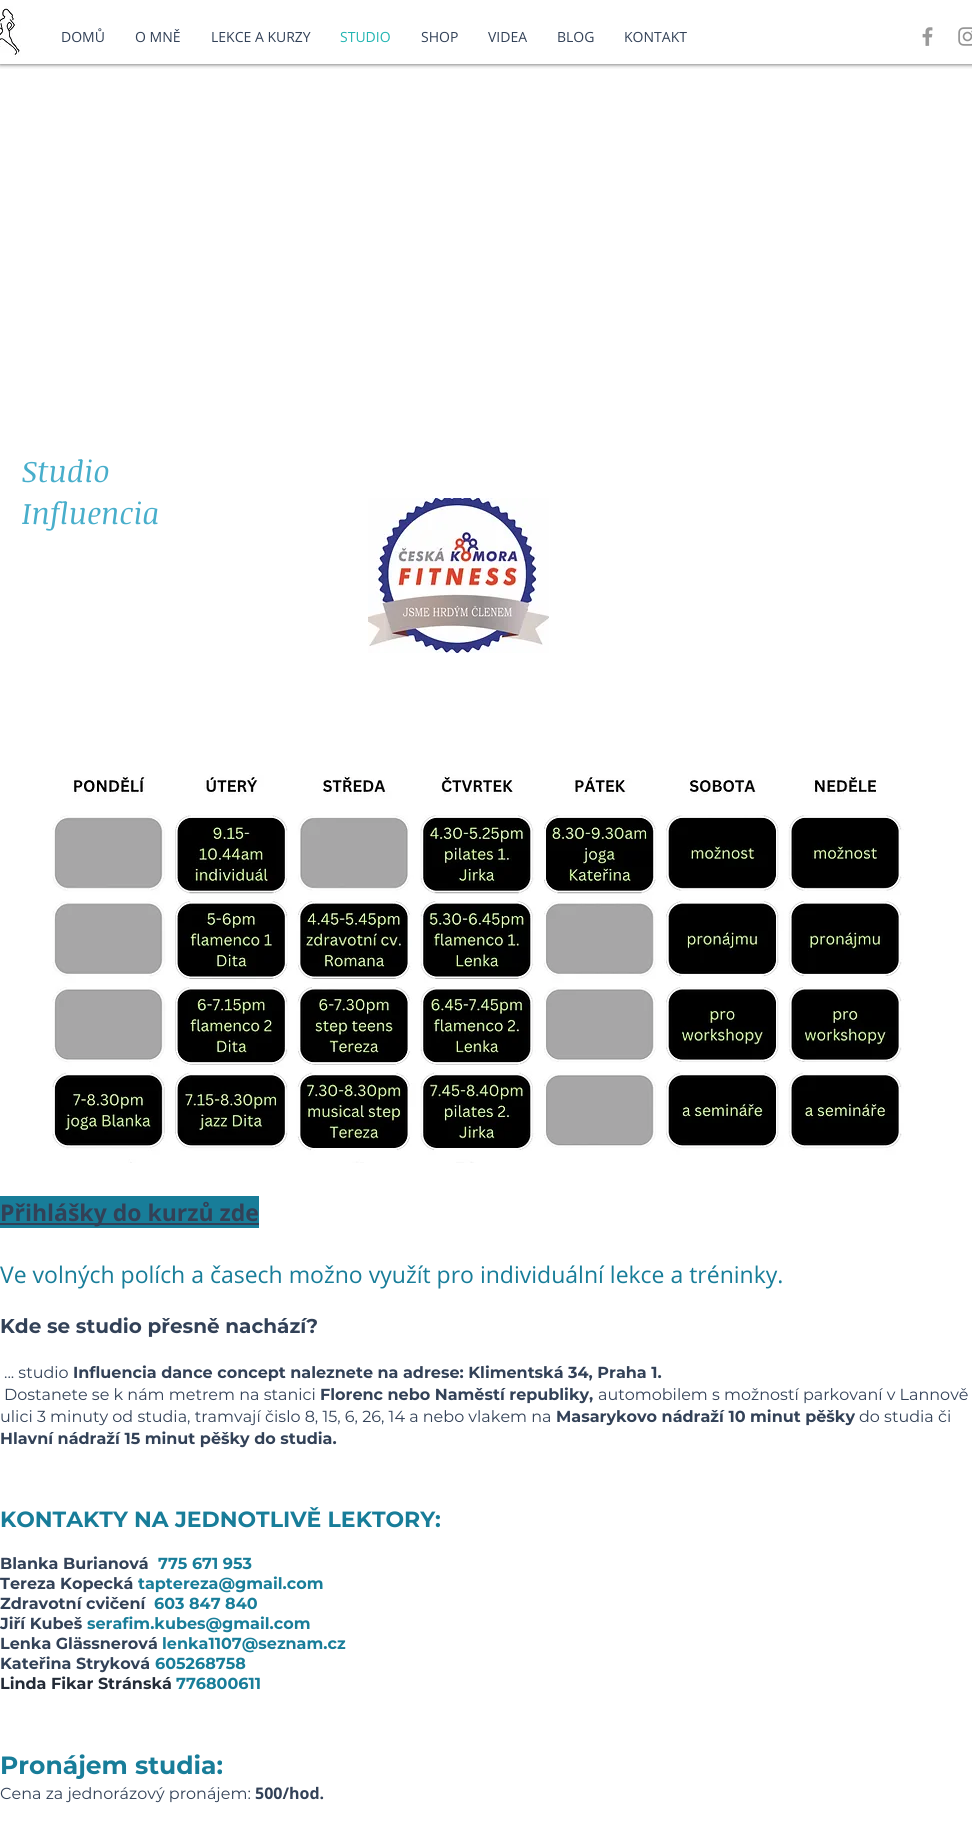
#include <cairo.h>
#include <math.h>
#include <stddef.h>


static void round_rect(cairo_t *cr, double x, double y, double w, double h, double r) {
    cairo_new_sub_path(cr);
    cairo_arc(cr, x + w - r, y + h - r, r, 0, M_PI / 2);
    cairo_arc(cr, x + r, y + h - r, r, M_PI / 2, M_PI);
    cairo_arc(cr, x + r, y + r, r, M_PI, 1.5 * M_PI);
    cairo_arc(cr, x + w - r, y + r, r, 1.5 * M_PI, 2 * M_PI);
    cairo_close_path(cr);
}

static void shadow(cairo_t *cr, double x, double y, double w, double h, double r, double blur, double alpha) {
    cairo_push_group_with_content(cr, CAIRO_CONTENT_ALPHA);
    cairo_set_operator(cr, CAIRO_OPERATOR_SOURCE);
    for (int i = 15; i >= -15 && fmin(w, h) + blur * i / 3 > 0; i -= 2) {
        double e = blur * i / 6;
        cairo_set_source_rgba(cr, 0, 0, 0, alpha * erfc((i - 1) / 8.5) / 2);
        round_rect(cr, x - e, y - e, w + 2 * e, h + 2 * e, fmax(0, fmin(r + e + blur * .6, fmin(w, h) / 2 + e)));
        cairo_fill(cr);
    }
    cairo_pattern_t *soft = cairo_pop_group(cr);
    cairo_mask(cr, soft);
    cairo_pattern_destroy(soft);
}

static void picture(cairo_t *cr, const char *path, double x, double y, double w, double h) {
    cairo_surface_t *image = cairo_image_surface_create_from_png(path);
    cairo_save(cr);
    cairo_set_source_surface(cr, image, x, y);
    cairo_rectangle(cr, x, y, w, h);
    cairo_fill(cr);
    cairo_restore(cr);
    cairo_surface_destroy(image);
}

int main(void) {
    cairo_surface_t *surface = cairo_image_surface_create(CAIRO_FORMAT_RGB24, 972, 1841);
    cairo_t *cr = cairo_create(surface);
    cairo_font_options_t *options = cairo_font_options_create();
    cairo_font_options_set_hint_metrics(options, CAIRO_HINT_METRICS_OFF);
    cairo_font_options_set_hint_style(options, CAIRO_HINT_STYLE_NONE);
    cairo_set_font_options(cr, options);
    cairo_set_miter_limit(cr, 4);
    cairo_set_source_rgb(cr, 1, 1, 1);
    cairo_paint(cr);
    cairo_save(cr);
    cairo_rectangle(cr, 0, 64, 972, 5);
    cairo_clip(cr);
    cairo_set_source_rgb(cr, 0, 0, 0);
    shadow(cr, 0, 0, 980, 64, 0, 2.5, 0.7);
    cairo_restore(cr);
    picture(cr, "img1.png", 0, 6, 21, 51);
    cairo_select_font_face(cr, "Open Sans", CAIRO_FONT_SLANT_NORMAL, CAIRO_FONT_WEIGHT_NORMAL);
    cairo_set_font_size(cr, 14);
    cairo_set_source_rgb(cr, 0.196, 0.255, 0.341);
    cairo_move_to(cr, 61, 42);
    cairo_show_text(cr, "DOMŮ");
    cairo_move_to(cr, 135, 42);
    cairo_show_text(cr, "O MNĚ");
    cairo_move_to(cr, 211, 42);
    cairo_show_text(cr, "LEKCE A KURZY");
    cairo_set_source_rgb(cr, 0.137, 0.71, 0.698);
    cairo_move_to(cr, 340, 42);
    cairo_show_text(cr, "STUDIO");
    cairo_set_source_rgb(cr, 0.196, 0.255, 0.341);
    cairo_move_to(cr, 421, 42);
    cairo_show_text(cr, "SHOP");
    cairo_move_to(cr, 488, 42);
    cairo_show_text(cr, "VIDEA");
    cairo_move_to(cr, 557, 42);
    cairo_show_text(cr, "BLOG");
    cairo_move_to(cr, 624, 42);
    cairo_show_text(cr, "KONTAKT");
    picture(cr, "img2.png", 922, 27, 11, 19);
    picture(cr, "img3.png", 958, 27, 14, 19);
    cairo_select_font_face(cr, "Noticia Text", CAIRO_FONT_SLANT_ITALIC, CAIRO_FONT_WEIGHT_NORMAL);
    cairo_set_font_size(cr, 30);
    cairo_set_source_rgb(cr, 0.282, 0.682, 0.796);
    cairo_move_to(cr, 22, 482);
    cairo_show_text(cr, "Studio");
    cairo_move_to(cr, 22, 524);
    cairo_show_text(cr, "Influencia");
    picture(cr, "img4.png", 368, 498, 181, 155);
    picture(cr, "img5.png", 52, 775, 852, 388);
    cairo_set_source_rgb(cr, 0.094, 0.49, 0.6);
    cairo_rectangle(cr, 0, 1196, 259, 32);
    cairo_fill(cr);
    cairo_set_source_rgb(cr, 0.196, 0.255, 0.341);
    cairo_rectangle(cr, 0, 1223, 259, 2);
    cairo_fill(cr);
    cairo_select_font_face(cr, "Open Sans", CAIRO_FONT_SLANT_NORMAL, CAIRO_FONT_WEIGHT_BOLD);
    cairo_set_font_size(cr, 23);
    cairo_move_to(cr, 0, 1221);
    cairo_show_text(cr, "Přihlášky do kurzů zde");
    cairo_select_font_face(cr, "Open Sans", CAIRO_FONT_SLANT_NORMAL, CAIRO_FONT_WEIGHT_NORMAL);
    cairo_set_source_rgb(cr, 0.094, 0.49, 0.6);
    cairo_move_to(cr, 0, 1283);
    cairo_show_text(cr, "Ve volných polích a časech možno využít pro individuální lekce a tréninky.");
    cairo_select_font_face(cr, "Montserrat", CAIRO_FONT_SLANT_NORMAL, CAIRO_FONT_WEIGHT_BOLD);
    cairo_set_font_size(cr, 20);
    cairo_set_source_rgb(cr, 0.196, 0.255, 0.341);
    cairo_move_to(cr, 0, 1333);
    cairo_show_text(cr, "Kde se studio přesně nachází?");
    cairo_select_font_face(cr, "Montserrat", CAIRO_FONT_SLANT_NORMAL, CAIRO_FONT_WEIGHT_NORMAL);
    cairo_set_font_size(cr, 16);
    cairo_move_to(cr, 4, 1378);
    cairo_show_text(cr, "... studio");
    cairo_select_font_face(cr, "Montserrat", CAIRO_FONT_SLANT_NORMAL, CAIRO_FONT_WEIGHT_BOLD);
    cairo_move_to(cr, 73, 1378);
    cairo_show_text(cr, "Influencia dance concept naleznete na adrese: Klimentská 34, Praha 1.");
    cairo_select_font_face(cr, "Montserrat", CAIRO_FONT_SLANT_NORMAL, CAIRO_FONT_WEIGHT_NORMAL);
    cairo_move_to(cr, 4, 1400);
    cairo_show_text(cr, "Dostanete se k nám metrem na stanici");
    cairo_select_font_face(cr, "Montserrat", CAIRO_FONT_SLANT_NORMAL, CAIRO_FONT_WEIGHT_BOLD);
    cairo_move_to(cr, 320, 1400);
    cairo_show_text(cr, "Florenc nebo Naměstí republiky,");
    cairo_select_font_face(cr, "Montserrat", CAIRO_FONT_SLANT_NORMAL, CAIRO_FONT_WEIGHT_NORMAL);
    cairo_move_to(cr, 598, 1400);
    cairo_show_text(cr, "automobilem s možností parkovaní v Lannově");
    cairo_move_to(cr, 0, 1422);
    cairo_show_text(cr, "ulici 3 minuty od studia, tramvají čislo 8, 15, 6, 26, 14 a nebo vlakem na");
    cairo_select_font_face(cr, "Montserrat", CAIRO_FONT_SLANT_NORMAL, CAIRO_FONT_WEIGHT_BOLD);
    cairo_move_to(cr, 556, 1422);
    cairo_show_text(cr, "Masarykovo nádraží 10 minut pěšky");
    cairo_select_font_face(cr, "Montserrat", CAIRO_FONT_SLANT_NORMAL, CAIRO_FONT_WEIGHT_NORMAL);
    cairo_move_to(cr, 859, 1422);
    cairo_show_text(cr, "do studia či");
    cairo_select_font_face(cr, "Montserrat", CAIRO_FONT_SLANT_NORMAL, CAIRO_FONT_WEIGHT_BOLD);
    cairo_move_to(cr, 0, 1444);
    cairo_show_text(cr, "Hlavní nádraží 15 minut pěšky do studia.");
    cairo_set_font_size(cr, 22);
    cairo_set_source_rgb(cr, 0.094, 0.49, 0.6);
    cairo_move_to(cr, 0, 1527);
    cairo_show_text(cr, "KONTAKTY NA JEDNOTLIVĚ LEKTORY:");
    cairo_set_font_size(cr, 16);
    cairo_set_source_rgb(cr, 0.196, 0.255, 0.341);
    cairo_move_to(cr, 0, 1569);
    cairo_show_text(cr, "Blanka Burianová");
    cairo_set_source_rgb(cr, 0.094, 0.49, 0.6);
    cairo_move_to(cr, 158, 1569);
    cairo_show_text(cr, "775 671 953");
    cairo_set_source_rgb(cr, 0.196, 0.255, 0.341);
    cairo_move_to(cr, 0, 1589);
    cairo_show_text(cr, "Tereza Kopecká");
    cairo_set_source_rgb(cr, 0.094, 0.49, 0.6);
    cairo_move_to(cr, 138, 1589);
    cairo_show_text(cr, "taptereza@gmail.com");
    cairo_set_source_rgb(cr, 0.196, 0.255, 0.341);
    cairo_move_to(cr, 0, 1609);
    cairo_show_text(cr, "Zdravotní cvičení");
    cairo_set_source_rgb(cr, 0.094, 0.49, 0.6);
    cairo_move_to(cr, 154, 1609);
    cairo_show_text(cr, "603 847 840");
    cairo_set_source_rgb(cr, 0.196, 0.255, 0.341);
    cairo_move_to(cr, 0, 1629);
    cairo_show_text(cr, "Jiří Kubeš");
    cairo_set_source_rgb(cr, 0.094, 0.49, 0.6);
    cairo_move_to(cr, 87, 1629);
    cairo_show_text(cr, "serafim.kubes@gmail.com");
    cairo_set_source_rgb(cr, 0.196, 0.255, 0.341);
    cairo_move_to(cr, 0, 1649);
    cairo_show_text(cr, "Lenka Glässnerová");
    cairo_set_source_rgb(cr, 0.094, 0.49, 0.6);
    cairo_move_to(cr, 162, 1649);
    cairo_show_text(cr, "lenka1107@seznam.cz");
    cairo_set_source_rgb(cr, 0.196, 0.255, 0.341);
    cairo_move_to(cr, 0, 1669);
    cairo_show_text(cr, "Kateřina Stryková");
    cairo_set_source_rgb(cr, 0.094, 0.49, 0.6);
    cairo_move_to(cr, 155, 1669);
    cairo_show_text(cr, "605268758");
    cairo_set_source_rgb(cr, 0.133, 0.165, 0.212);
    cairo_move_to(cr, 0, 1689);
    cairo_show_text(cr, "Linda Fikar Stránská");
    cairo_set_source_rgb(cr, 0.094, 0.49, 0.6);
    cairo_move_to(cr, 176, 1689);
    cairo_show_text(cr, "776800611");
    cairo_set_font_size(cr, 25);
    cairo_move_to(cr, 0, 1774);
    cairo_show_text(cr, "Pronájem studia:");
    cairo_select_font_face(cr, "Montserrat", CAIRO_FONT_SLANT_NORMAL, CAIRO_FONT_WEIGHT_NORMAL);
    cairo_set_font_size(cr, 16);
    cairo_set_source_rgb(cr, 0.196, 0.255, 0.341);
    cairo_move_to(cr, 0, 1799);
    cairo_show_text(cr, "Cena za jednorázový pronájem:");
    cairo_select_font_face(cr, "Open Sans", CAIRO_FONT_SLANT_NORMAL, CAIRO_FONT_WEIGHT_BOLD);
    cairo_move_to(cr, 255, 1799);
    cairo_show_text(cr, "500/hod.");
    cairo_surface_write_to_png(surface, "page.png");
    cairo_font_options_destroy(options);
    cairo_destroy(cr);
    cairo_surface_destroy(surface);
    return 0;
}
